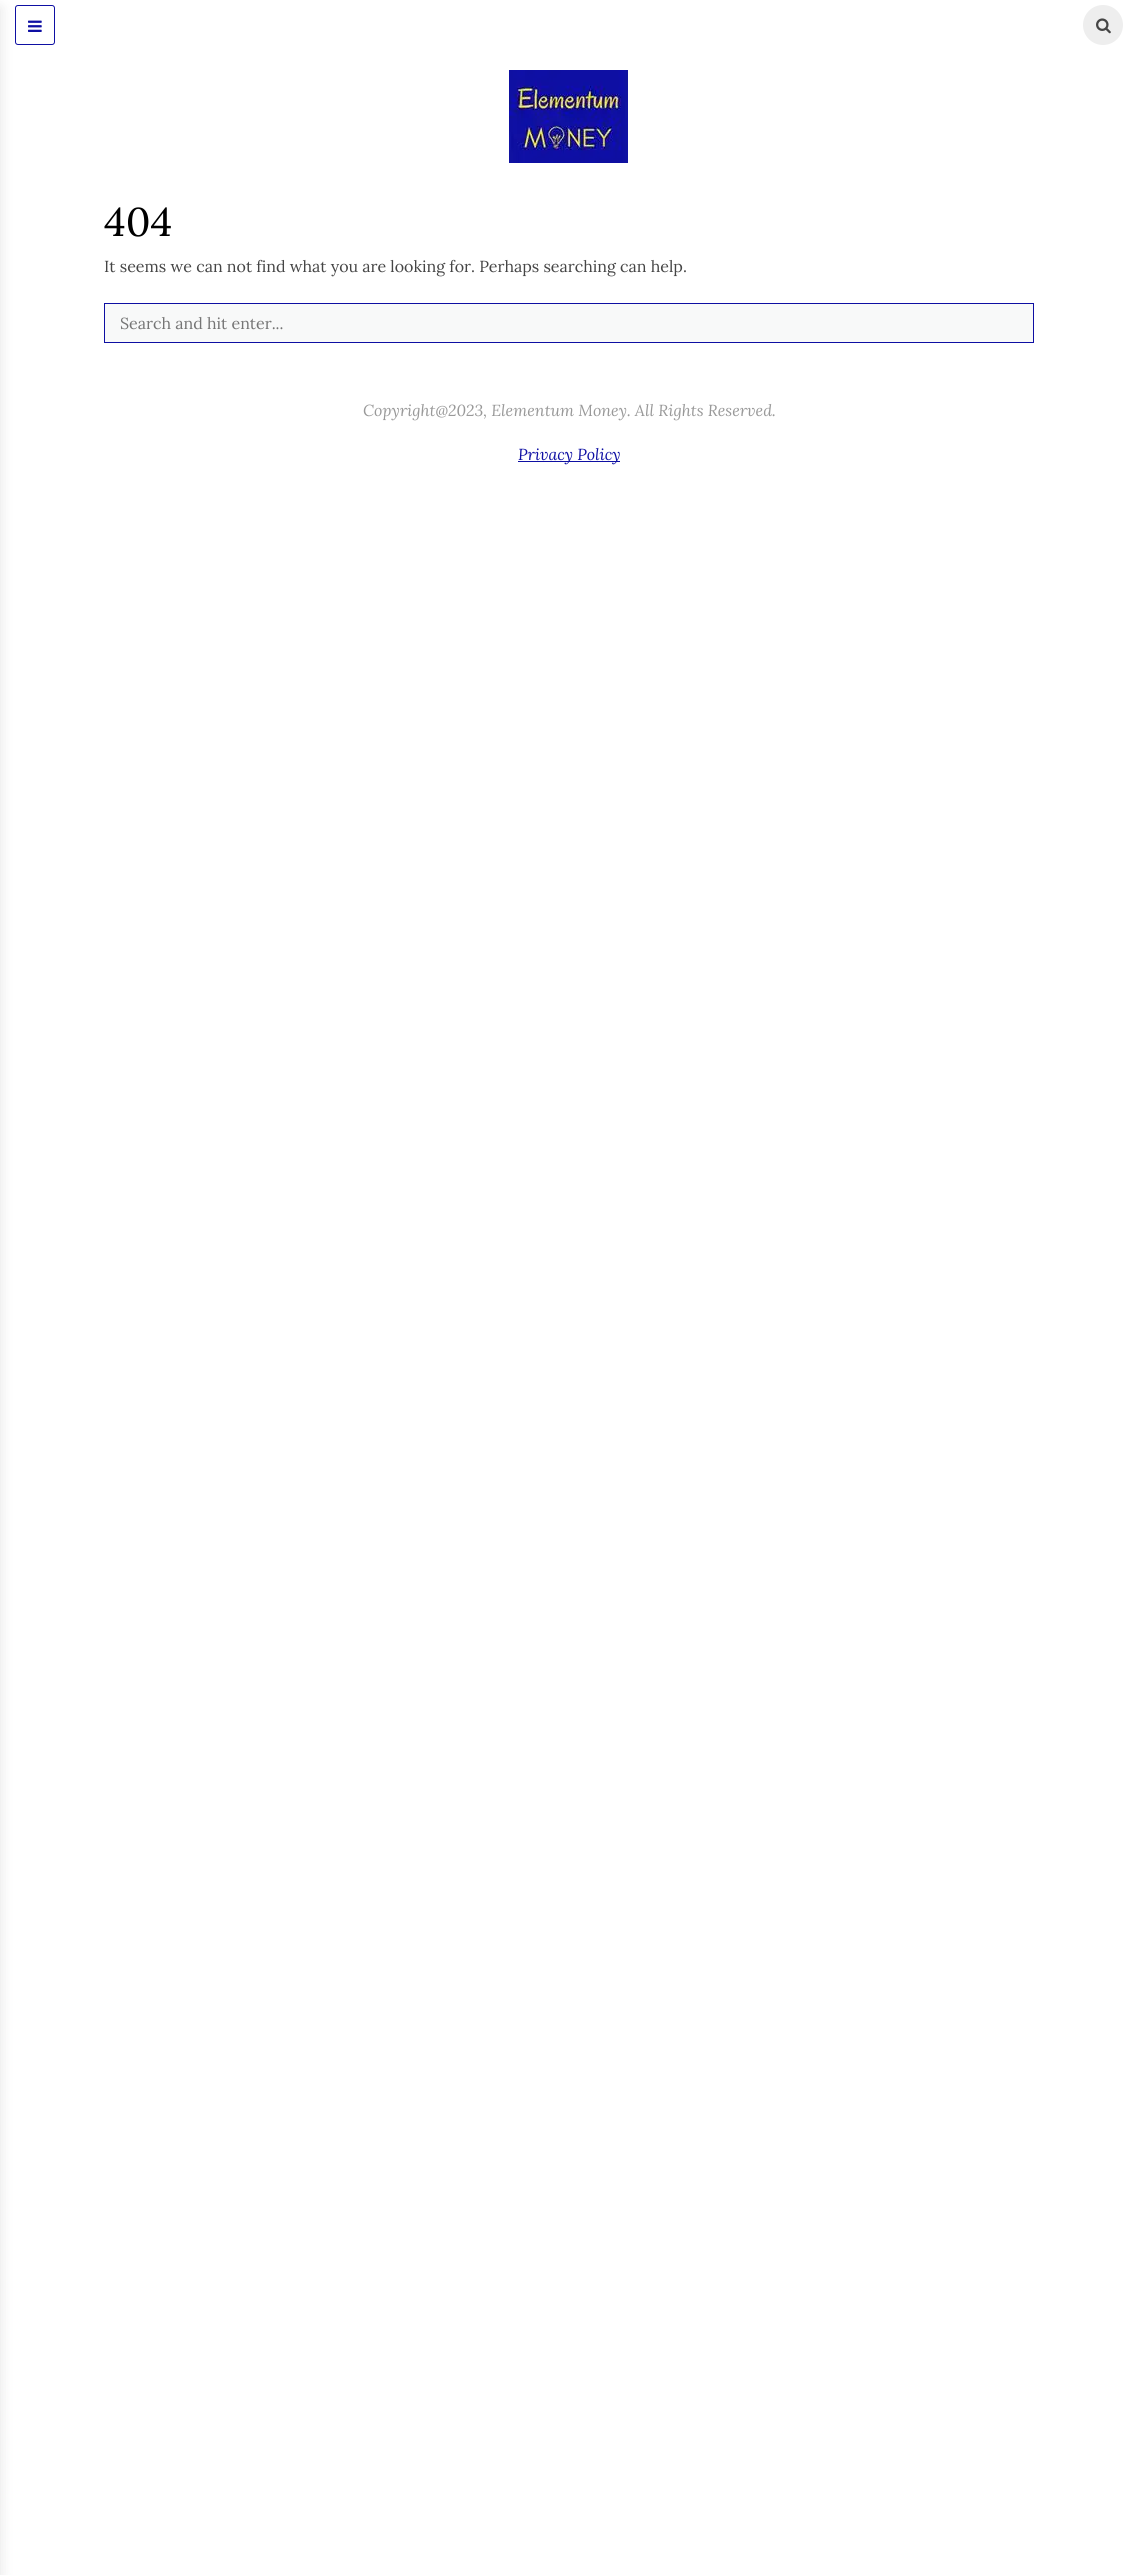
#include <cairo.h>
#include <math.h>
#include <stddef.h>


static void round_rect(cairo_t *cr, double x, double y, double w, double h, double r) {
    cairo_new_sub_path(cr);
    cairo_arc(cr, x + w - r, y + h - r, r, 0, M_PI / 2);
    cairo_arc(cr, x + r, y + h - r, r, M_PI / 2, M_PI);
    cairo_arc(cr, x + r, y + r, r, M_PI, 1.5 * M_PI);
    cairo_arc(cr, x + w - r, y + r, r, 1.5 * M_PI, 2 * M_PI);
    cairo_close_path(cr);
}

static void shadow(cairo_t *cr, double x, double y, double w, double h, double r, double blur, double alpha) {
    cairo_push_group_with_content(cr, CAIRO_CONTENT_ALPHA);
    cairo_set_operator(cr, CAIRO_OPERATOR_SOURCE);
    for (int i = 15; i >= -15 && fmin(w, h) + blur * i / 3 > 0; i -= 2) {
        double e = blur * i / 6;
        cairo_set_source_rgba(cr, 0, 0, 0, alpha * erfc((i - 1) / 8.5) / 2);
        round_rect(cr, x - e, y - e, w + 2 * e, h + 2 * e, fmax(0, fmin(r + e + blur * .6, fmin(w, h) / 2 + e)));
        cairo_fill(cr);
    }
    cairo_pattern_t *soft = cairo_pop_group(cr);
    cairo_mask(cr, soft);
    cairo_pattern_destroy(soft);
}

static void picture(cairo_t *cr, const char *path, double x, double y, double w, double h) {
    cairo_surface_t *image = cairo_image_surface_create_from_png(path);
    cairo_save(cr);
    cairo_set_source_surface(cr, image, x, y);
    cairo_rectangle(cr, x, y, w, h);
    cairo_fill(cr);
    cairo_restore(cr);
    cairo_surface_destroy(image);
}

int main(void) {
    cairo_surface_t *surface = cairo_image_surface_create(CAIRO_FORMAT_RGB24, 1138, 2575);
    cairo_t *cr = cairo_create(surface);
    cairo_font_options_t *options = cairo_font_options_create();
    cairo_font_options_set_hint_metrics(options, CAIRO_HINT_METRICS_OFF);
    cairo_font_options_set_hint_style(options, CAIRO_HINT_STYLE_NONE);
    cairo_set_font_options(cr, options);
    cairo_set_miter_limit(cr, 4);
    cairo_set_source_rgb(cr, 1, 1, 1);
    cairo_paint(cr);
    round_rect(cr, 15.5, 5.5, 39, 39, 2.5);
    cairo_set_source_rgb(cr, 0.055, 0.059, 0.639);
    cairo_set_line_width(cr, 1);
    cairo_stroke(cr);
    cairo_set_source_rgb(cr, 0, 0, 0);
    shadow(cr, -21, 8, 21, 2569, 0, 7, 0.11);
    picture(cr, "img1.png", 28, 20, 14, 12);
    cairo_set_source_rgb(cr, 0.933, 0.933, 0.933);
    cairo_arc(cr, 1103, 25, 20, 0, 2 * M_PI);
    cairo_fill(cr);
    picture(cr, "img2.png", 1096, 18, 15, 16);
    picture(cr, "img3.png", 509, 70, 119, 93);
    cairo_select_font_face(cr, "Lora", CAIRO_FONT_SLANT_NORMAL, CAIRO_FONT_WEIGHT_NORMAL);
    cairo_set_font_size(cr, 40);
    cairo_set_source_rgb(cr, 0, 0, 0);
    cairo_move_to(cr, 104, 236);
    cairo_show_text(cr, "404");
    cairo_set_font_size(cr, 16);
    cairo_set_source_rgb(cr, 0.271, 0.271, 0.271);
    cairo_move_to(cr, 104, 272);
    cairo_show_text(cr, "It seems we can not find what you are looking for. Perhaps searching can help.");
    cairo_set_source_rgb(cr, 0.969, 0.973, 0.976);
    cairo_rectangle(cr, 104.5, 303.5, 929, 39);
    cairo_fill_preserve(cr);
    cairo_set_source_rgb(cr, 0.055, 0.059, 0.639);
    cairo_stroke(cr);
    cairo_set_source_rgb(cr, 0.459, 0.459, 0.459);
    cairo_move_to(cr, 120, 329);
    cairo_show_text(cr, "Search and hit enter...");
    cairo_select_font_face(cr, "Lora", CAIRO_FONT_SLANT_ITALIC, CAIRO_FONT_WEIGHT_NORMAL);
    cairo_set_source_rgb(cr, 0.6, 0.6, 0.6);
    cairo_move_to(cr, 363, 416);
    cairo_show_text(cr, "Copyright@2023, Elementum Money. All Rights Reserved.");
    cairo_set_source_rgb(cr, 0.055, 0.059, 0.639);
    cairo_rectangle(cr, 518, 461, 102, 1);
    cairo_fill(cr);
    cairo_move_to(cr, 518, 460);
    cairo_show_text(cr, "Privacy Policy");
    cairo_surface_write_to_png(surface, "page.png");
    cairo_font_options_destroy(options);
    cairo_destroy(cr);
    cairo_surface_destroy(surface);
    return 0;
}
